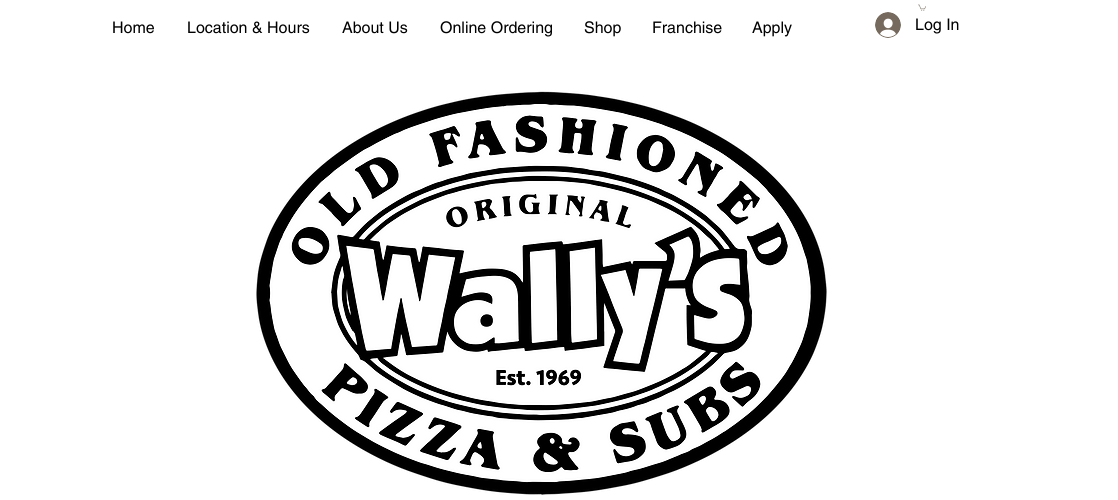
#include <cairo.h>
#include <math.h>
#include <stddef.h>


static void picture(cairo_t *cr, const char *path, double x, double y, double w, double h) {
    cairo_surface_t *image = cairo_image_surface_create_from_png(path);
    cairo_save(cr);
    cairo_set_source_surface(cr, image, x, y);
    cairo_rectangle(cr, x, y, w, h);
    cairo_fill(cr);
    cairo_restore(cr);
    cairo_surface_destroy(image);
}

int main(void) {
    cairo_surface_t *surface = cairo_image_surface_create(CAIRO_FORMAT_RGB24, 1118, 500);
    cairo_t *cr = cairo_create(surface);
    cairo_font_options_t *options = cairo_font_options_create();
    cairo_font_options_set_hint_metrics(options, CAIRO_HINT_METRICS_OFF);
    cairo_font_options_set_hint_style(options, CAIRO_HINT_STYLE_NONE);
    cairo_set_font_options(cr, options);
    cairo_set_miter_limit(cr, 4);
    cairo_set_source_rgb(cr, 1, 1, 1);
    cairo_paint(cr);
    picture(cr, "img1.png", 918, 4, 8, 7);
    cairo_select_font_face(cr, "helvetica", CAIRO_FONT_SLANT_NORMAL, CAIRO_FONT_WEIGHT_NORMAL);
    cairo_set_font_size(cr, 16);
    cairo_set_source_rgb(cr, 0, 0, 0);
    cairo_move_to(cr, 112, 33);
    cairo_show_text(cr, "Home");
    cairo_move_to(cr, 187, 33);
    cairo_show_text(cr, "Location & Hours");
    cairo_move_to(cr, 342, 33);
    cairo_show_text(cr, "About Us");
    cairo_move_to(cr, 440, 33);
    cairo_show_text(cr, "Online Ordering");
    cairo_move_to(cr, 584, 33);
    cairo_show_text(cr, "Shop");
    cairo_move_to(cr, 652, 33);
    cairo_show_text(cr, "Franchise");
    cairo_move_to(cr, 752, 33);
    cairo_show_text(cr, "Apply");
    picture(cr, "img2.png", 875, 12, 26, 26);
    cairo_move_to(cr, 915, 30);
    cairo_show_text(cr, "Log In");
    picture(cr, "img3.png", 256, 91, 571, 404);
    cairo_surface_write_to_png(surface, "page.png");
    cairo_font_options_destroy(options);
    cairo_destroy(cr);
    cairo_surface_destroy(surface);
    return 0;
}
